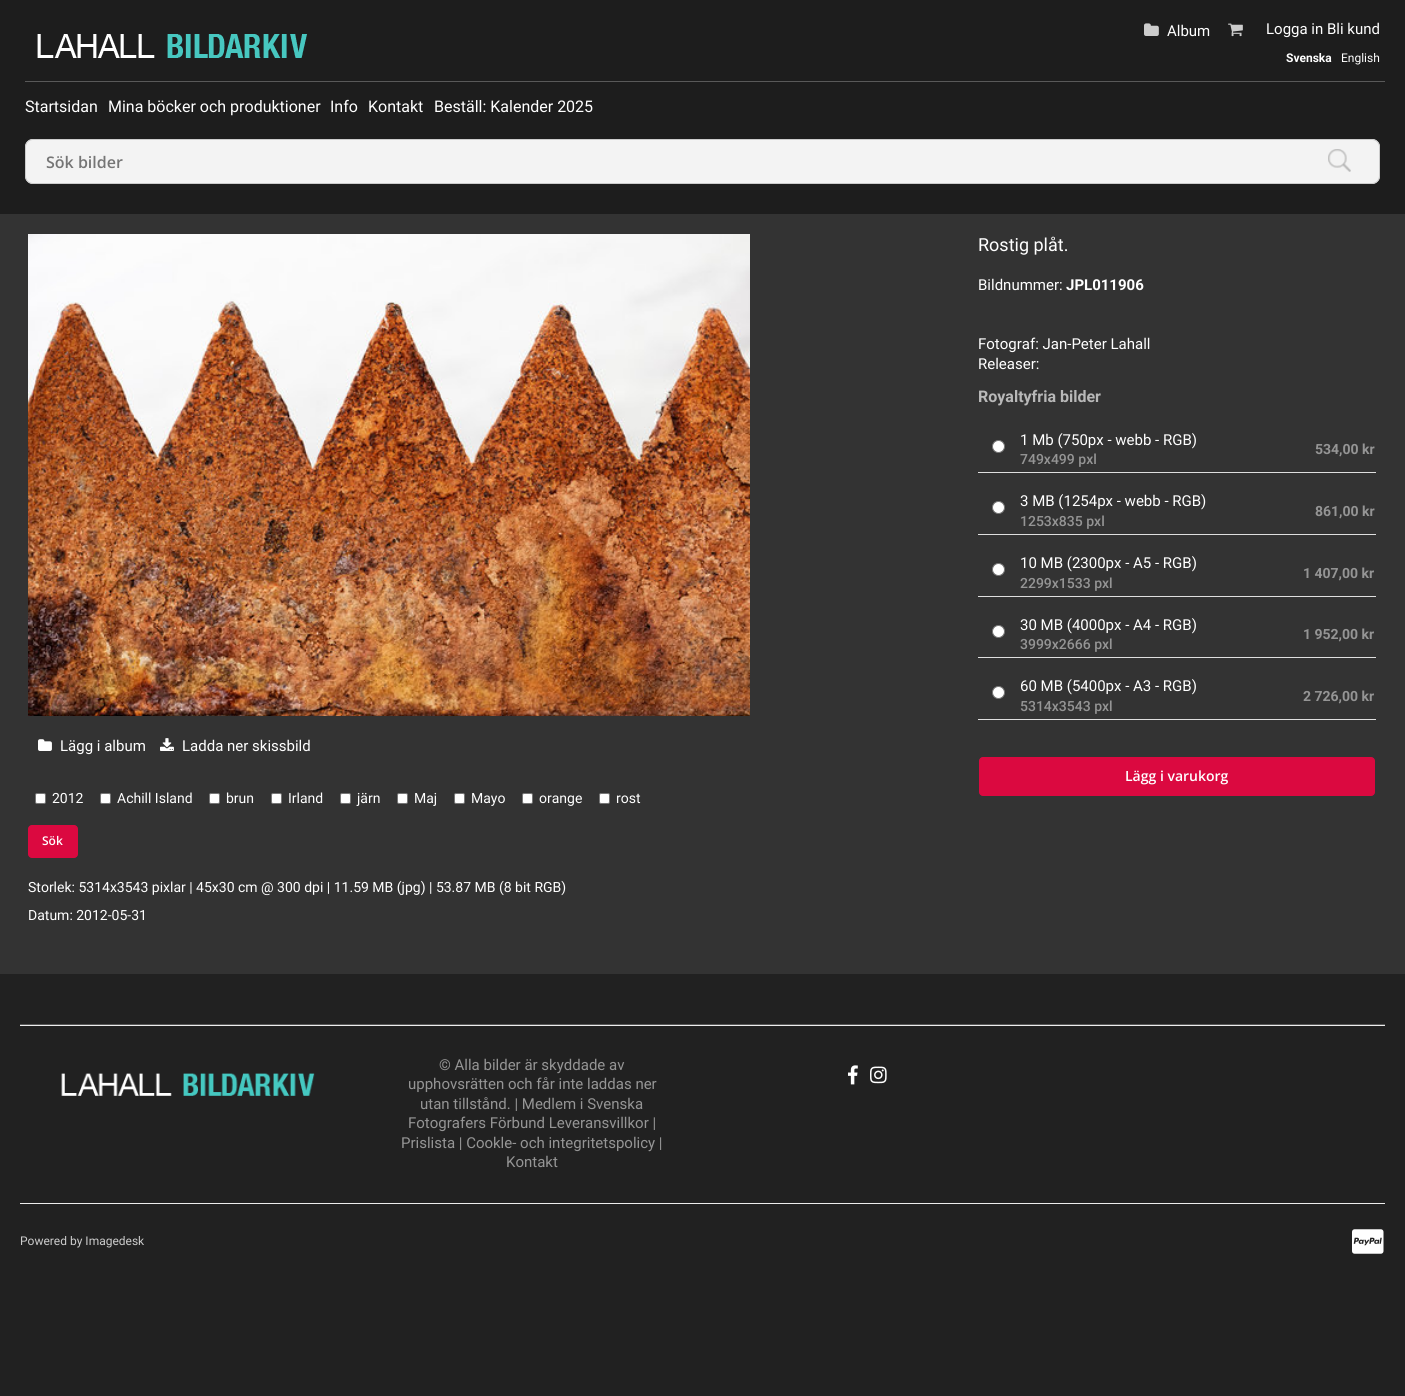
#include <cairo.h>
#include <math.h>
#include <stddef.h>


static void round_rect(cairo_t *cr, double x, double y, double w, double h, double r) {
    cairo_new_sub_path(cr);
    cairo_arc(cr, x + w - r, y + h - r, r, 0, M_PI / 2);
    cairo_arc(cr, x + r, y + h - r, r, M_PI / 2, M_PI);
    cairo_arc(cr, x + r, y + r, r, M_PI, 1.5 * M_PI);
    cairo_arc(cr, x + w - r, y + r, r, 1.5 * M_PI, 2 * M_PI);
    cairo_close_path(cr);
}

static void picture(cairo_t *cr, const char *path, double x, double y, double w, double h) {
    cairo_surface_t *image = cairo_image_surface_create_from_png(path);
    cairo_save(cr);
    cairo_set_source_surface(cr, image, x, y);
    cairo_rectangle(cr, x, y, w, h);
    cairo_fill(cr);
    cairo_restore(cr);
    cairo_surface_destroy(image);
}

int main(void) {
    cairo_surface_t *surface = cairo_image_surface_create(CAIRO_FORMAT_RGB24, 1405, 1396);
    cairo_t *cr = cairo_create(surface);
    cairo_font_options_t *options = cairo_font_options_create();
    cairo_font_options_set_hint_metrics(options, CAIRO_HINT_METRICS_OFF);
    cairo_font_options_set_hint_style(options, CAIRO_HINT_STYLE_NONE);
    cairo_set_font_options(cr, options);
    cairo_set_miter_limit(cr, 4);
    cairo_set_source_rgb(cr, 0.129, 0.129, 0.129);
    cairo_paint(cr);
    cairo_set_source_rgb(cr, 0.114, 0.114, 0.114);
    cairo_rectangle(cr, 0, 0, 1405, 214);
    cairo_fill(cr);
    picture(cr, "img1.png", 37, 34, 270, 24);
    picture(cr, "img2.png", 1144, 23, 15, 13);
    cairo_select_font_face(cr, "Roboto", CAIRO_FONT_SLANT_NORMAL, CAIRO_FONT_WEIGHT_NORMAL);
    cairo_set_font_size(cr, 15);
    cairo_set_source_rgb(cr, 1, 1, 1);
    cairo_move_to(cr, 1167, 36);
    cairo_show_text(cr, "Album");
    picture(cr, "img3.png", 1228, 23, 15, 14);
    cairo_move_to(cr, 1266, 34);
    cairo_show_text(cr, "Logga in Bli kund");
    cairo_select_font_face(cr, "Roboto", CAIRO_FONT_SLANT_NORMAL, CAIRO_FONT_WEIGHT_BOLD);
    cairo_set_font_size(cr, 12);
    cairo_move_to(cr, 1286, 62);
    cairo_show_text(cr, "Svenska");
    cairo_select_font_face(cr, "Roboto", CAIRO_FONT_SLANT_NORMAL, CAIRO_FONT_WEIGHT_NORMAL);
    cairo_move_to(cr, 1341, 62);
    cairo_show_text(cr, "English");
    cairo_set_source_rgb(cr, 0.349, 0.349, 0.349);
    cairo_rectangle(cr, 25, 81, 1360, 1);
    cairo_fill(cr);
    cairo_set_font_size(cr, 16);
    cairo_set_source_rgb(cr, 1, 1, 1);
    cairo_move_to(cr, 25, 112);
    cairo_show_text(cr, "Startsidan");
    cairo_move_to(cr, 108, 112);
    cairo_show_text(cr, "Mina böcker och produktioner");
    cairo_move_to(cr, 330, 112);
    cairo_show_text(cr, "Info");
    cairo_move_to(cr, 368, 112);
    cairo_show_text(cr, "Kontakt");
    cairo_move_to(cr, 434, 112);
    cairo_show_text(cr, "Beställ: Kalender 2025");
    cairo_set_source_rgb(cr, 0.953, 0.953, 0.953);
    round_rect(cr, 25, 139, 1355, 45, 8);
    cairo_fill(cr);
    picture(cr, "img4.png", 1328, 149, 23, 23);
    round_rect(cr, 25.5, 139.5, 1354, 44, 7.5);
    cairo_set_source_rgb(cr, 0.8, 0.8, 0.8);
    cairo_set_line_width(cr, 1);
    cairo_stroke(cr);
    cairo_select_font_face(cr, "Open Sans SemiBold", CAIRO_FONT_SLANT_NORMAL, CAIRO_FONT_WEIGHT_NORMAL);
    cairo_set_source_rgb(cr, 0.459, 0.459, 0.459);
    cairo_move_to(cr, 46, 168);
    cairo_show_text(cr, "Sök bilder");
    cairo_set_source_rgb(cr, 0.2, 0.2, 0.2);
    cairo_rectangle(cr, 0, 214, 1405, 760);
    cairo_fill(cr);
    cairo_select_font_face(cr, "Roboto", CAIRO_FONT_SLANT_NORMAL, CAIRO_FONT_WEIGHT_NORMAL);
    cairo_set_font_size(cr, 18);
    cairo_set_source_rgb(cr, 1, 1, 1);
    cairo_move_to(cr, 978, 251);
    cairo_show_text(cr, "Rostig plåt.");
    cairo_set_font_size(cr, 15);
    cairo_move_to(cr, 978, 290);
    cairo_show_text(cr, "Bildnummer:");
    cairo_select_font_face(cr, "Roboto", CAIRO_FONT_SLANT_NORMAL, CAIRO_FONT_WEIGHT_BOLD);
    cairo_move_to(cr, 1066, 290);
    cairo_show_text(cr, "JPL011906");
    cairo_select_font_face(cr, "Roboto", CAIRO_FONT_SLANT_NORMAL, CAIRO_FONT_WEIGHT_NORMAL);
    cairo_move_to(cr, 978, 349);
    cairo_show_text(cr, "Fotograf: Jan-Peter Lahall");
    cairo_move_to(cr, 978, 369);
    cairo_show_text(cr, "Releaser:");
    cairo_select_font_face(cr, "Roboto", CAIRO_FONT_SLANT_NORMAL, CAIRO_FONT_WEIGHT_BOLD);
    cairo_set_font_size(cr, 16);
    cairo_set_source_rgb(cr, 0.722, 0.722, 0.722);
    cairo_move_to(cr, 978, 402);
    cairo_show_text(cr, "Royaltyfria bilder");
    cairo_set_source_rgb(cr, 0.875, 0.875, 0.875);
    cairo_rectangle(cr, 978, 472, 398, 1);
    cairo_fill(cr);
    cairo_set_source_rgb(cr, 1, 1, 1);
    cairo_arc(cr, 998.5, 446.5, 6, 0, 2 * M_PI);
    cairo_fill_preserve(cr);
    cairo_set_source_rgb(cr, 0.463, 0.463, 0.463);
    cairo_stroke(cr);
    cairo_select_font_face(cr, "Roboto", CAIRO_FONT_SLANT_NORMAL, CAIRO_FONT_WEIGHT_NORMAL);
    cairo_set_font_size(cr, 15);
    cairo_set_source_rgb(cr, 1, 1, 1);
    cairo_move_to(cr, 1020, 445);
    cairo_show_text(cr, "1 Mb (750px - webb - RGB)");
    cairo_select_font_face(cr, "Roboto Medium", CAIRO_FONT_SLANT_NORMAL, CAIRO_FONT_WEIGHT_NORMAL);
    cairo_set_font_size(cr, 14);
    cairo_set_source_rgb(cr, 0.584, 0.584, 0.584);
    cairo_move_to(cr, 1020, 464);
    cairo_show_text(cr, "749x499 pxl");
    cairo_select_font_face(cr, "Roboto", CAIRO_FONT_SLANT_NORMAL, CAIRO_FONT_WEIGHT_BOLD);
    cairo_move_to(cr, 1315, 454);
    cairo_show_text(cr, "534,00 kr");
    cairo_set_source_rgb(cr, 0.875, 0.875, 0.875);
    cairo_rectangle(cr, 978, 534, 398, 1);
    cairo_fill(cr);
    cairo_set_source_rgb(cr, 1, 1, 1);
    cairo_arc(cr, 998.5, 507.5, 6, 0, 2 * M_PI);
    cairo_fill_preserve(cr);
    cairo_set_source_rgb(cr, 0.463, 0.463, 0.463);
    cairo_stroke(cr);
    cairo_select_font_face(cr, "Roboto", CAIRO_FONT_SLANT_NORMAL, CAIRO_FONT_WEIGHT_NORMAL);
    cairo_set_font_size(cr, 15);
    cairo_set_source_rgb(cr, 1, 1, 1);
    cairo_move_to(cr, 1020, 506);
    cairo_show_text(cr, "3 MB (1254px - webb - RGB)");
    cairo_select_font_face(cr, "Roboto Medium", CAIRO_FONT_SLANT_NORMAL, CAIRO_FONT_WEIGHT_NORMAL);
    cairo_set_font_size(cr, 14);
    cairo_set_source_rgb(cr, 0.584, 0.584, 0.584);
    cairo_move_to(cr, 1020, 526);
    cairo_show_text(cr, "1253x835 pxl");
    cairo_select_font_face(cr, "Roboto", CAIRO_FONT_SLANT_NORMAL, CAIRO_FONT_WEIGHT_BOLD);
    cairo_move_to(cr, 1315, 516);
    cairo_show_text(cr, "861,00 kr");
    cairo_set_source_rgb(cr, 0.875, 0.875, 0.875);
    cairo_rectangle(cr, 978, 596, 398, 1);
    cairo_fill(cr);
    cairo_set_source_rgb(cr, 1, 1, 1);
    cairo_arc(cr, 998.5, 569.5, 6, 0, 2 * M_PI);
    cairo_fill_preserve(cr);
    cairo_set_source_rgb(cr, 0.463, 0.463, 0.463);
    cairo_stroke(cr);
    cairo_select_font_face(cr, "Roboto", CAIRO_FONT_SLANT_NORMAL, CAIRO_FONT_WEIGHT_NORMAL);
    cairo_set_font_size(cr, 15);
    cairo_set_source_rgb(cr, 1, 1, 1);
    cairo_move_to(cr, 1020, 568);
    cairo_show_text(cr, "10 MB (2300px - A5 - RGB)");
    cairo_select_font_face(cr, "Roboto Medium", CAIRO_FONT_SLANT_NORMAL, CAIRO_FONT_WEIGHT_NORMAL);
    cairo_set_font_size(cr, 14);
    cairo_set_source_rgb(cr, 0.584, 0.584, 0.584);
    cairo_move_to(cr, 1020, 588);
    cairo_show_text(cr, "2299x1533 pxl");
    cairo_select_font_face(cr, "Roboto", CAIRO_FONT_SLANT_NORMAL, CAIRO_FONT_WEIGHT_BOLD);
    cairo_move_to(cr, 1303, 578);
    cairo_show_text(cr, "1 407,00 kr");
    cairo_set_source_rgb(cr, 0.875, 0.875, 0.875);
    cairo_rectangle(cr, 978, 657, 398, 1);
    cairo_fill(cr);
    cairo_set_source_rgb(cr, 1, 1, 1);
    cairo_arc(cr, 998.5, 631.5, 6, 0, 2 * M_PI);
    cairo_fill_preserve(cr);
    cairo_set_source_rgb(cr, 0.463, 0.463, 0.463);
    cairo_stroke(cr);
    cairo_select_font_face(cr, "Roboto", CAIRO_FONT_SLANT_NORMAL, CAIRO_FONT_WEIGHT_NORMAL);
    cairo_set_font_size(cr, 15);
    cairo_set_source_rgb(cr, 1, 1, 1);
    cairo_move_to(cr, 1020, 630);
    cairo_show_text(cr, "30 MB (4000px - A4 - RGB)");
    cairo_select_font_face(cr, "Roboto Medium", CAIRO_FONT_SLANT_NORMAL, CAIRO_FONT_WEIGHT_NORMAL);
    cairo_set_font_size(cr, 14);
    cairo_set_source_rgb(cr, 0.584, 0.584, 0.584);
    cairo_move_to(cr, 1020, 649);
    cairo_show_text(cr, "3999x2666 pxl");
    cairo_select_font_face(cr, "Roboto", CAIRO_FONT_SLANT_NORMAL, CAIRO_FONT_WEIGHT_BOLD);
    cairo_move_to(cr, 1303, 639);
    cairo_show_text(cr, "1 952,00 kr");
    cairo_set_source_rgb(cr, 0.875, 0.875, 0.875);
    cairo_rectangle(cr, 978, 719, 398, 1);
    cairo_fill(cr);
    cairo_set_source_rgb(cr, 1, 1, 1);
    cairo_arc(cr, 998.5, 692.5, 6, 0, 2 * M_PI);
    cairo_fill_preserve(cr);
    cairo_set_source_rgb(cr, 0.463, 0.463, 0.463);
    cairo_stroke(cr);
    cairo_select_font_face(cr, "Roboto", CAIRO_FONT_SLANT_NORMAL, CAIRO_FONT_WEIGHT_NORMAL);
    cairo_set_font_size(cr, 15);
    cairo_set_source_rgb(cr, 1, 1, 1);
    cairo_move_to(cr, 1020, 691);
    cairo_show_text(cr, "60 MB (5400px - A3 - RGB)");
    cairo_select_font_face(cr, "Roboto Medium", CAIRO_FONT_SLANT_NORMAL, CAIRO_FONT_WEIGHT_NORMAL);
    cairo_set_font_size(cr, 14);
    cairo_set_source_rgb(cr, 0.584, 0.584, 0.584);
    cairo_move_to(cr, 1020, 711);
    cairo_show_text(cr, "5314x3543 pxl");
    cairo_select_font_face(cr, "Roboto", CAIRO_FONT_SLANT_NORMAL, CAIRO_FONT_WEIGHT_BOLD);
    cairo_move_to(cr, 1303, 701);
    cairo_show_text(cr, "2 726,00 kr");
    cairo_set_source_rgb(cr, 0.859, 0.039, 0.251);
    round_rect(cr, 979.5, 757.5, 395, 38, 3.5);
    cairo_fill_preserve(cr);
    cairo_stroke(cr);
    cairo_select_font_face(cr, "Open Sans SemiBold", CAIRO_FONT_SLANT_NORMAL, CAIRO_FONT_WEIGHT_NORMAL);
    cairo_set_source_rgb(cr, 1, 1, 1);
    cairo_move_to(cr, 1125, 781);
    cairo_show_text(cr, "Lägg i varukorg");
    picture(cr, "img5.png", 28, 234, 722, 482);
    picture(cr, "img6.png", 38, 739, 14, 12);
    cairo_select_font_face(cr, "Roboto", CAIRO_FONT_SLANT_NORMAL, CAIRO_FONT_WEIGHT_NORMAL);
    cairo_set_font_size(cr, 15);
    cairo_move_to(cr, 60, 751);
    cairo_show_text(cr, "Lägg i album");
    picture(cr, "img7.png", 160, 738, 14, 13);
    cairo_move_to(cr, 182, 751);
    cairo_show_text(cr, "Ladda ner skissbild");
    round_rect(cr, 35.5, 793.5, 10, 10, 1.5);
    cairo_fill_preserve(cr);
    cairo_set_source_rgb(cr, 0.463, 0.463, 0.463);
    cairo_stroke(cr);
    cairo_set_font_size(cr, 14);
    cairo_set_source_rgb(cr, 1, 1, 1);
    cairo_move_to(cr, 52, 803);
    cairo_show_text(cr, "2012");
    round_rect(cr, 100.5, 793.5, 10, 10, 1.5);
    cairo_fill_preserve(cr);
    cairo_set_source_rgb(cr, 0.463, 0.463, 0.463);
    cairo_stroke(cr);
    cairo_set_source_rgb(cr, 1, 1, 1);
    cairo_move_to(cr, 117, 803);
    cairo_show_text(cr, "Achill Island");
    round_rect(cr, 209.5, 793.5, 10, 10, 1.5);
    cairo_fill_preserve(cr);
    cairo_set_source_rgb(cr, 0.463, 0.463, 0.463);
    cairo_stroke(cr);
    cairo_set_source_rgb(cr, 1, 1, 1);
    cairo_move_to(cr, 226, 803);
    cairo_show_text(cr, "brun");
    round_rect(cr, 271.5, 793.5, 10, 10, 1.5);
    cairo_fill_preserve(cr);
    cairo_set_source_rgb(cr, 0.463, 0.463, 0.463);
    cairo_stroke(cr);
    cairo_set_source_rgb(cr, 1, 1, 1);
    cairo_move_to(cr, 288, 803);
    cairo_show_text(cr, "Irland");
    round_rect(cr, 340.5, 793.5, 10, 10, 1.5);
    cairo_fill_preserve(cr);
    cairo_set_source_rgb(cr, 0.463, 0.463, 0.463);
    cairo_stroke(cr);
    cairo_set_source_rgb(cr, 1, 1, 1);
    cairo_move_to(cr, 357, 803);
    cairo_show_text(cr, "järn");
    round_rect(cr, 397.5, 793.5, 10, 10, 1.5);
    cairo_fill_preserve(cr);
    cairo_set_source_rgb(cr, 0.463, 0.463, 0.463);
    cairo_stroke(cr);
    cairo_set_source_rgb(cr, 1, 1, 1);
    cairo_move_to(cr, 414, 803);
    cairo_show_text(cr, "Maj");
    round_rect(cr, 454.5, 793.5, 10, 10, 1.5);
    cairo_fill_preserve(cr);
    cairo_set_source_rgb(cr, 0.463, 0.463, 0.463);
    cairo_stroke(cr);
    cairo_set_source_rgb(cr, 1, 1, 1);
    cairo_move_to(cr, 471, 803);
    cairo_show_text(cr, "Mayo");
    round_rect(cr, 522.5, 793.5, 10, 10, 1.5);
    cairo_fill_preserve(cr);
    cairo_set_source_rgb(cr, 0.463, 0.463, 0.463);
    cairo_stroke(cr);
    cairo_set_source_rgb(cr, 1, 1, 1);
    cairo_move_to(cr, 539, 803);
    cairo_show_text(cr, "orange");
    round_rect(cr, 599.5, 793.5, 10, 10, 1.5);
    cairo_fill_preserve(cr);
    cairo_set_source_rgb(cr, 0.463, 0.463, 0.463);
    cairo_stroke(cr);
    cairo_set_source_rgb(cr, 1, 1, 1);
    cairo_move_to(cr, 616, 803);
    cairo_show_text(cr, "rost");
    cairo_set_source_rgb(cr, 0.859, 0.039, 0.251);
    round_rect(cr, 28.5, 825.5, 49, 32, 3.5);
    cairo_fill_preserve(cr);
    cairo_stroke(cr);
    cairo_select_font_face(cr, "Open Sans SemiBold", CAIRO_FONT_SLANT_NORMAL, CAIRO_FONT_WEIGHT_NORMAL);
    cairo_set_font_size(cr, 12);
    cairo_set_source_rgb(cr, 1, 1, 1);
    cairo_move_to(cr, 42, 845);
    cairo_show_text(cr, "Sök");
    cairo_select_font_face(cr, "Roboto", CAIRO_FONT_SLANT_NORMAL, CAIRO_FONT_WEIGHT_NORMAL);
    cairo_set_font_size(cr, 14);
    cairo_move_to(cr, 28, 892);
    cairo_show_text(cr, "Storlek: 5314x3543 pixlar | 45x30 cm @ 300 dpi | 11.59 MB (jpg) | 53.87 MB (8 bit RGB)");
    cairo_move_to(cr, 28, 920);
    cairo_show_text(cr, "Datum: 2012-05-31");
    cairo_set_source_rgb(cr, 0.349, 0.349, 0.349);
    cairo_rectangle(cr, 20, 1024, 1365, 1);
    cairo_fill(cr);
    cairo_set_source_rgb(cr, 0.929, 0.929, 0.929);
    cairo_rectangle(cr, 20, 1025, 1365, 1);
    cairo_fill(cr);
    cairo_rectangle(cr, 20, 1203, 1365, 1);
    cairo_fill(cr);
    picture(cr, "img8.png", 61, 1073, 254, 23);
    cairo_set_font_size(cr, 15);
    cairo_set_source_rgb(cr, 0.584, 0.584, 0.584);
    cairo_move_to(cr, 439, 1070);
    cairo_show_text(cr, "© Alla bilder är skyddade av");
    cairo_move_to(cr, 408, 1089);
    cairo_show_text(cr, "upphovsrätten och får inte laddas ner");
    cairo_move_to(cr, 420, 1109);
    cairo_show_text(cr, "utan tillstånd. | Medlem i Svenska");
    cairo_move_to(cr, 408, 1128);
    cairo_show_text(cr, "Fotografers Förbund Leveransvillkor |");
    cairo_move_to(cr, 401, 1148);
    cairo_show_text(cr, "Prislista | Cookle- och integritetspolicy |");
    cairo_move_to(cr, 506, 1167);
    cairo_show_text(cr, "Kontakt");
    picture(cr, "img9.png", 848, 1065, 10, 20);
    picture(cr, "img10.png", 870, 1066, 17, 18);
    cairo_set_font_size(cr, 12);
    cairo_set_source_rgb(cr, 0.8, 0.8, 0.8);
    cairo_move_to(cr, 20, 1245);
    cairo_show_text(cr, "Powered by Imagedesk");
    picture(cr, "img11.png", 1352, 1229, 32, 25);
    cairo_surface_write_to_png(surface, "page.png");
    cairo_font_options_destroy(options);
    cairo_destroy(cr);
    cairo_surface_destroy(surface);
    return 0;
}
